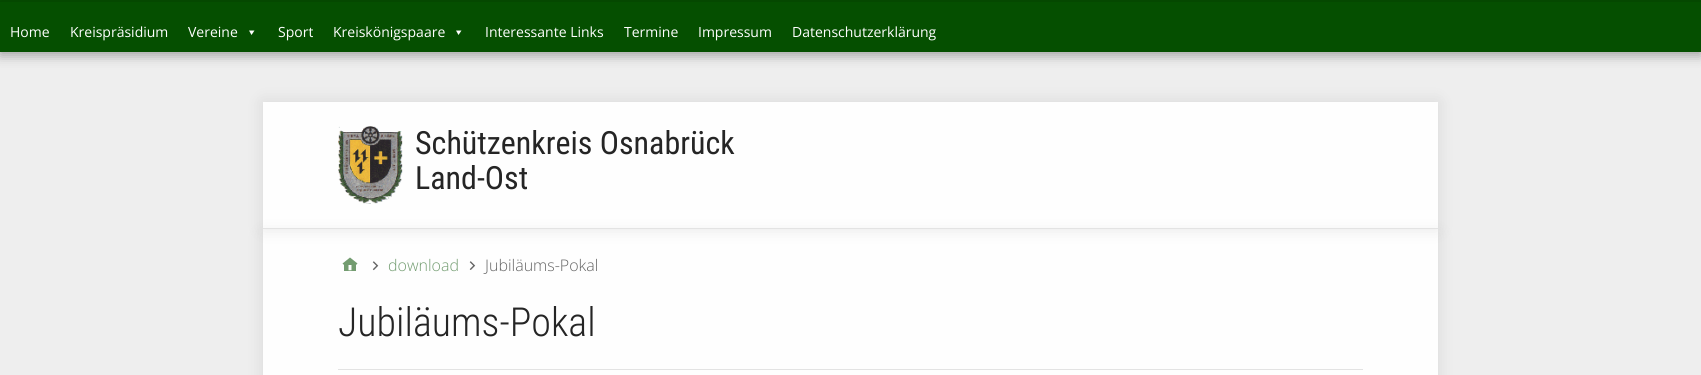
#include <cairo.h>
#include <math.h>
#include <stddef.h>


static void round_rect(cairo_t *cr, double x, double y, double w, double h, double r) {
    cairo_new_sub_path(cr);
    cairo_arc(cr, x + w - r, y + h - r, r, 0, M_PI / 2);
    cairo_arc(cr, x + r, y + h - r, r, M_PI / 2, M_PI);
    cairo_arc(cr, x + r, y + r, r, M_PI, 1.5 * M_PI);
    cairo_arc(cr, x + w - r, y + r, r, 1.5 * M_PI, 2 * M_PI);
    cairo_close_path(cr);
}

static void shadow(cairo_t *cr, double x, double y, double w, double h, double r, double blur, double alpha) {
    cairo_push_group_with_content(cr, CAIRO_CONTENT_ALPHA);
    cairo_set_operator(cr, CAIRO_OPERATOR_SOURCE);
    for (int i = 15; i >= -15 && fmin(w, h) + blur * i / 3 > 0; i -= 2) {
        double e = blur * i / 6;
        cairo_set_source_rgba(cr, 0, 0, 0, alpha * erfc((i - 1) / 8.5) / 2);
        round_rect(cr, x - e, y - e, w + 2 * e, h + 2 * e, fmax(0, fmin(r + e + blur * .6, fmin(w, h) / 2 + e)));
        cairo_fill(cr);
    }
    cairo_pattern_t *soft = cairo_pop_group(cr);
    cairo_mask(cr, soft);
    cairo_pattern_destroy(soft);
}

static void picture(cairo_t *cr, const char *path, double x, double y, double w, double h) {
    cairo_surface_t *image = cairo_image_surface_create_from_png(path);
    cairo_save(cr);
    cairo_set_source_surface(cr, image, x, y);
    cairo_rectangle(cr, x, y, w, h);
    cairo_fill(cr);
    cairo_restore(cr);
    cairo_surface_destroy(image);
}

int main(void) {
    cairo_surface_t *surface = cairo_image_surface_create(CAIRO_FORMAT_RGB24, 1701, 375);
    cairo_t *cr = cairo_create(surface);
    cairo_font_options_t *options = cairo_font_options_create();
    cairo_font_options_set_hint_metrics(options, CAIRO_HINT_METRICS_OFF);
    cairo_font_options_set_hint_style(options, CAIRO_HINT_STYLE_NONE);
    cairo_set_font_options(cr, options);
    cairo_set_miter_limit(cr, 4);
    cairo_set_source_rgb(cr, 0.933, 0.933, 0.933);
    cairo_paint(cr);
    cairo_set_source_rgb(cr, 0.02, 0.31, 0);
    cairo_rectangle(cr, 0, 0, 1701, 2);
    cairo_fill(cr);
    cairo_set_source_rgb(cr, 0, 0, 0);
    shadow(cr, 0, 5, 1701, 50, 0, 6, 0.35);
    cairo_set_source_rgb(cr, 0.02, 0.31, 0);
    cairo_rectangle(cr, 0, 2, 1701, 50);
    cairo_fill(cr);
    cairo_select_font_face(cr, "Open Sans", CAIRO_FONT_SLANT_NORMAL, CAIRO_FONT_WEIGHT_NORMAL);
    cairo_set_font_size(cr, 14);
    cairo_set_source_rgb(cr, 1, 1, 1);
    cairo_move_to(cr, 10, 37);
    cairo_show_text(cr, "Home");
    cairo_move_to(cr, 70, 37);
    cairo_show_text(cr, "Kreispräsidium");
    cairo_move_to(cr, 188, 37);
    cairo_show_text(cr, "Vereine");
    cairo_new_path(cr);
    cairo_move_to(cr, 254.5, 30.5);
    cairo_line_to(cr, 251.5, 35);
    cairo_line_to(cr, 249, 30.5);
    cairo_close_path(cr);
    cairo_fill(cr);
    cairo_move_to(cr, 278, 37);
    cairo_show_text(cr, "Sport");
    cairo_move_to(cr, 333, 37);
    cairo_show_text(cr, "Kreiskönigspaare");
    cairo_new_path(cr);
    cairo_move_to(cr, 461.5, 30.5);
    cairo_line_to(cr, 458.5, 35);
    cairo_line_to(cr, 456, 30.5);
    cairo_close_path(cr);
    cairo_fill(cr);
    cairo_move_to(cr, 485, 37);
    cairo_show_text(cr, "Interessante Links");
    cairo_move_to(cr, 624, 37);
    cairo_show_text(cr, "Termine");
    cairo_move_to(cr, 698, 37);
    cairo_show_text(cr, "Impressum");
    cairo_move_to(cr, 792, 37);
    cairo_show_text(cr, "Datenschutzerklärung");
    cairo_set_source_rgb(cr, 0.996, 0.996, 0.996);
    cairo_rectangle(cr, 263, 102, 1175, 273);
    cairo_fill(cr);
    cairo_save(cr);
    cairo_set_fill_rule(cr, CAIRO_FILL_RULE_EVEN_ODD);
    cairo_new_path(cr);
    cairo_move_to(cr, 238, 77);
    cairo_line_to(cr, 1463, 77);
    cairo_line_to(cr, 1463, 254);
    cairo_line_to(cr, 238, 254);
    cairo_close_path(cr);
    cairo_move_to(cr, 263, 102);
    cairo_line_to(cr, 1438, 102);
    cairo_line_to(cr, 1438, 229);
    cairo_line_to(cr, 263, 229);
    cairo_close_path(cr);
    cairo_clip(cr);
    cairo_set_source_rgb(cr, 0, 0, 0);
    shadow(cr, 263, 102, 1175, 127, 0, 8, 0.1);
    cairo_restore(cr);
    cairo_save(cr);
    cairo_set_fill_rule(cr, CAIRO_FILL_RULE_EVEN_ODD);
    cairo_new_path(cr);
    cairo_move_to(cr, 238, 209);
    cairo_line_to(cr, 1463, 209);
    cairo_line_to(cr, 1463, 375);
    cairo_line_to(cr, 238, 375);
    cairo_close_path(cr);
    cairo_move_to(cr, 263, 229);
    cairo_line_to(cr, 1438, 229);
    cairo_line_to(cr, 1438, 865);
    cairo_line_to(cr, 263, 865);
    cairo_close_path(cr);
    cairo_clip(cr);
    cairo_set_source_rgb(cr, 0, 0, 0);
    shadow(cr, 263, 234, 1175, 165, 0, 8, 0.1);
    cairo_restore(cr);
    cairo_set_source_rgb(cr, 0.89, 0.89, 0.89);
    cairo_rectangle(cr, 263, 228, 1175, 1);
    cairo_fill(cr);
    picture(cr, "img1.png", 338, 126, 65, 78);
    cairo_select_font_face(cr, "Roboto Condensed", CAIRO_FONT_SLANT_NORMAL, CAIRO_FONT_WEIGHT_NORMAL);
    cairo_set_font_size(cr, 32);
    cairo_set_source_rgb(cr, 0.145, 0.145, 0.145);
    cairo_move_to(cr, 415, 154);
    cairo_show_text(cr, "Schützenkreis Osnabrück");
    cairo_move_to(cr, 415, 189);
    cairo_show_text(cr, "Land-Ost");
    picture(cr, "img2.png", 342, 257, 16, 14);
    picture(cr, "img3.png", 372, 261, 7, 10);
    cairo_select_font_face(cr, "Open Sans Light", CAIRO_FONT_SLANT_NORMAL, CAIRO_FONT_WEIGHT_NORMAL);
    cairo_set_font_size(cr, 16);
    cairo_set_source_rgb(cr, 0.447, 0.612, 0.439);
    cairo_move_to(cr, 388, 271);
    cairo_show_text(cr, "download");
    picture(cr, "img4.png", 469, 261, 7, 9);
    cairo_set_source_rgb(cr, 0.396, 0.396, 0.396);
    cairo_move_to(cr, 485, 271);
    cairo_show_text(cr, "Jubiläums-Pokal");
    cairo_set_source_rgb(cr, 0.89, 0.89, 0.89);
    cairo_rectangle(cr, 338, 369, 1025, 1);
    cairo_fill(cr);
    cairo_select_font_face(cr, "Roboto Condensed Light", CAIRO_FONT_SLANT_NORMAL, CAIRO_FONT_WEIGHT_NORMAL);
    cairo_set_font_size(cr, 40);
    cairo_set_source_rgb(cr, 0.145, 0.145, 0.145);
    cairo_move_to(cr, 338, 336);
    cairo_show_text(cr, "Jubiläums-Pokal");
    cairo_surface_write_to_png(surface, "page.png");
    cairo_font_options_destroy(options);
    cairo_destroy(cr);
    cairo_surface_destroy(surface);
    return 0;
}
